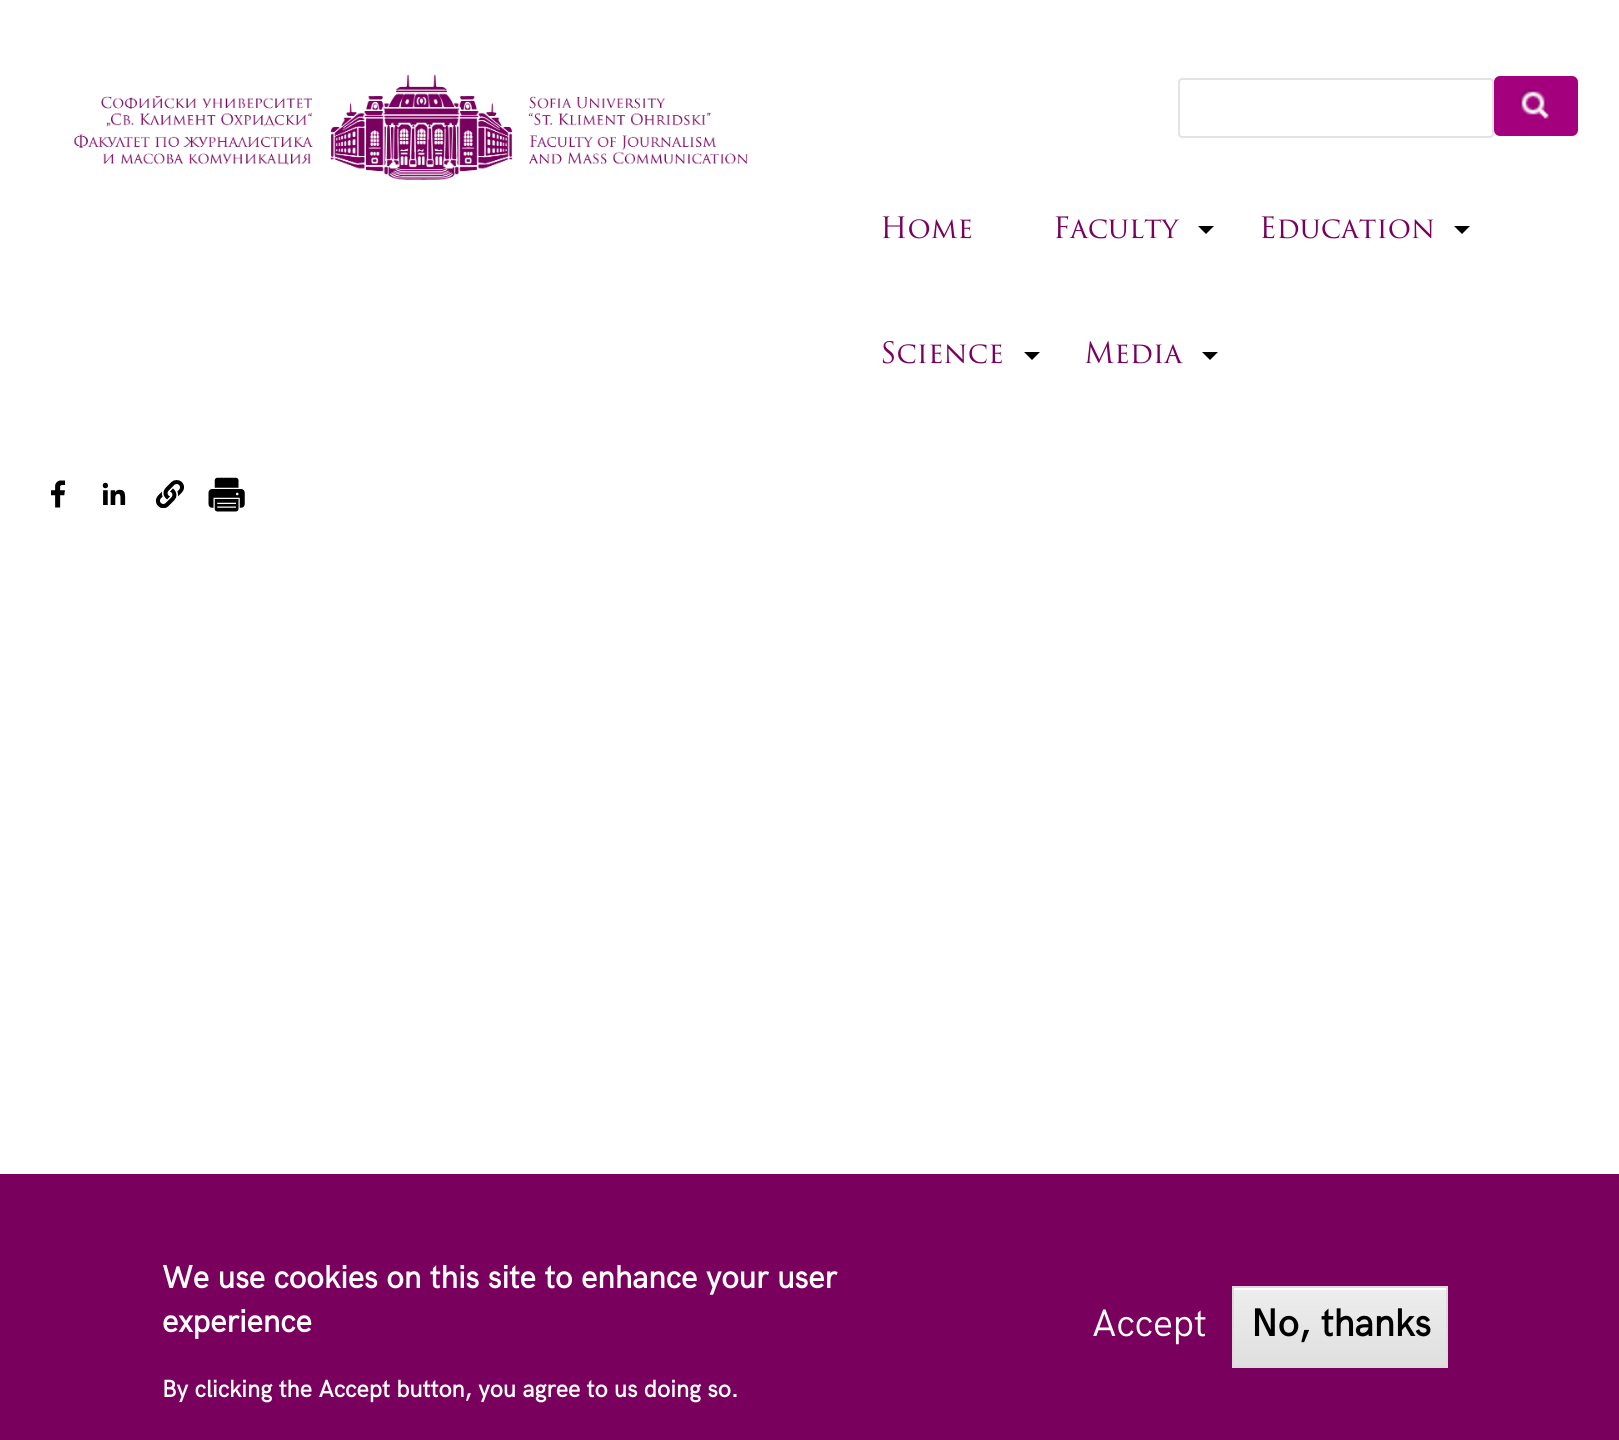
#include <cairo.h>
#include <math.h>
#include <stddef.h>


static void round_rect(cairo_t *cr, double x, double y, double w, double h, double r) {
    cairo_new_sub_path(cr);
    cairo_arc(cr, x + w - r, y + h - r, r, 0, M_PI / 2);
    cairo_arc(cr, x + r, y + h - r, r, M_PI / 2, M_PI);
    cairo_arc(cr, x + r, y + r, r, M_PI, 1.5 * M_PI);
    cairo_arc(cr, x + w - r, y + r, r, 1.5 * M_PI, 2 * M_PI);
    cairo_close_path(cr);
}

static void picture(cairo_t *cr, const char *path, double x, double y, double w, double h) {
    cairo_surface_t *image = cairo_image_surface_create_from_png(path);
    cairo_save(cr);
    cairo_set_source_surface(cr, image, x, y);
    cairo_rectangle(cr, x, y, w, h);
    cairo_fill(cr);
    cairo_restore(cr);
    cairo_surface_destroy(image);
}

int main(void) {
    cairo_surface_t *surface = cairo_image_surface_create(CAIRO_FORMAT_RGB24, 1619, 1440);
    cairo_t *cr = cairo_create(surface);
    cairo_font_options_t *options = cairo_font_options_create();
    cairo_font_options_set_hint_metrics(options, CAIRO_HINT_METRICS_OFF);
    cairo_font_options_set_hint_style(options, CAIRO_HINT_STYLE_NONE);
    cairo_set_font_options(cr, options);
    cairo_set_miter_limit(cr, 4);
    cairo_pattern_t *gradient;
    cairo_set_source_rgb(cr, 1, 1, 1);
    cairo_paint(cr);
    picture(cr, "img1.png", 73, 74, 675, 106);
    round_rect(cr, 1179, 79, 314, 58, 3);
    cairo_set_source_rgb(cr, 0.89, 0.89, 0.89);
    cairo_stroke(cr);
    cairo_set_source_rgb(cr, 0.643, 0, 0.494);
    round_rect(cr, 1494, 76, 84, 60, 6);
    cairo_fill(cr);
    picture(cr, "img2.png", 1519, 89, 30, 30);
    cairo_select_font_face(cr, "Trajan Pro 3", CAIRO_FONT_SLANT_NORMAL, CAIRO_FONT_WEIGHT_NORMAL);
    cairo_set_font_size(cr, 28.75);
    cairo_set_source_rgb(cr, 0.478, 0, 0.369);
    cairo_move_to(cr, 880, 238);
    cairo_show_text(cr, "Home");
    cairo_move_to(cr, 1053, 238);
    cairo_show_text(cr, "Faculty");
    cairo_set_source_rgb(cr, 0, 0, 0);
    cairo_new_path(cr);
    cairo_move_to(cr, 1198, 226);
    cairo_line_to(cr, 1214, 226);
    cairo_line_to(cr, 1206, 234);
    cairo_close_path(cr);
    cairo_fill(cr);
    cairo_set_source_rgb(cr, 0.478, 0, 0.369);
    cairo_move_to(cr, 1259, 238);
    cairo_show_text(cr, "Education");
    cairo_set_source_rgb(cr, 0, 0, 0);
    cairo_new_path(cr);
    cairo_move_to(cr, 1454, 226);
    cairo_line_to(cr, 1470, 226);
    cairo_line_to(cr, 1462, 234);
    cairo_close_path(cr);
    cairo_fill(cr);
    cairo_set_source_rgb(cr, 0.478, 0, 0.369);
    cairo_move_to(cr, 880, 363);
    cairo_show_text(cr, "Science");
    cairo_set_source_rgb(cr, 0, 0, 0);
    cairo_new_path(cr);
    cairo_move_to(cr, 1024, 352);
    cairo_line_to(cr, 1040, 352);
    cairo_line_to(cr, 1032, 360);
    cairo_close_path(cr);
    cairo_fill(cr);
    cairo_set_source_rgb(cr, 0.478, 0, 0.369);
    cairo_move_to(cr, 1084, 363);
    cairo_show_text(cr, "Media");
    cairo_set_source_rgb(cr, 0, 0, 0);
    cairo_new_path(cr);
    cairo_move_to(cr, 1202, 352);
    cairo_line_to(cr, 1218, 352);
    cairo_line_to(cr, 1210, 360);
    cairo_close_path(cr);
    cairo_fill(cr);
    picture(cr, "img3.png", 51, 480, 15, 28);
    picture(cr, "img4.png", 102, 482, 24, 23);
    picture(cr, "img5.png", 155, 480, 29, 28);
    picture(cr, "img6.png", 208, 477, 37, 35);
    cairo_set_source_rgb(cr, 0.478, 0, 0.369);
    cairo_rectangle(cr, 0, 1174, 1619, 266);
    cairo_fill(cr);
    cairo_select_font_face(cr, "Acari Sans", CAIRO_FONT_SLANT_NORMAL, CAIRO_FONT_WEIGHT_BOLD);
    cairo_set_font_size(cr, 32);
    cairo_set_source_rgb(cr, 1, 1, 1);
    cairo_move_to(cr, 162, 1288);
    cairo_show_text(cr, "We use cookies on this site to enhance your user");
    cairo_move_to(cr, 162, 1332);
    cairo_show_text(cr, "experience");
    cairo_set_font_size(cr, 24);
    cairo_move_to(cr, 162, 1397);
    cairo_show_text(cr, "By clicking the Accept button, you agree to us doing so.");
    cairo_select_font_face(cr, "Acari Sans", CAIRO_FONT_SLANT_NORMAL, CAIRO_FONT_WEIGHT_NORMAL);
    cairo_set_font_size(cr, 38.5);
    cairo_move_to(cr, 1092, 1336);
    cairo_show_text(cr, "Accept");
    gradient = cairo_pattern_create_linear(1340, 1288, 1340, 1366);
    cairo_pattern_add_color_stop_rgba(gradient, 0.05, 0.929, 0.929, 0.929, 1);
    cairo_pattern_add_color_stop_rgba(gradient, 1, 0.875, 0.875, 0.875, 1);
    cairo_set_source(cr, gradient);
    cairo_pattern_destroy(gradient);
    cairo_rectangle(cr, 1234, 1290, 212, 76);
    cairo_fill(cr);
    cairo_set_source_rgb(cr, 1, 1, 1);
    cairo_rectangle(cr, 1234, 1288, 212, 2);
    cairo_fill(cr);
    cairo_rectangle(cr, 1233, 1287, 214, 80);
    cairo_set_source_rgb(cr, 0.863, 0.863, 0.863);
    cairo_stroke(cr);
    cairo_select_font_face(cr, "Acari Sans", CAIRO_FONT_SLANT_NORMAL, CAIRO_FONT_WEIGHT_BOLD);
    cairo_set_source_rgb(cr, 0, 0, 0);
    cairo_move_to(cr, 1251, 1336);
    cairo_show_text(cr, "No, thanks");
    cairo_surface_write_to_png(surface, "page.png");
    cairo_font_options_destroy(options);
    cairo_destroy(cr);
    cairo_surface_destroy(surface);
    return 0;
}
